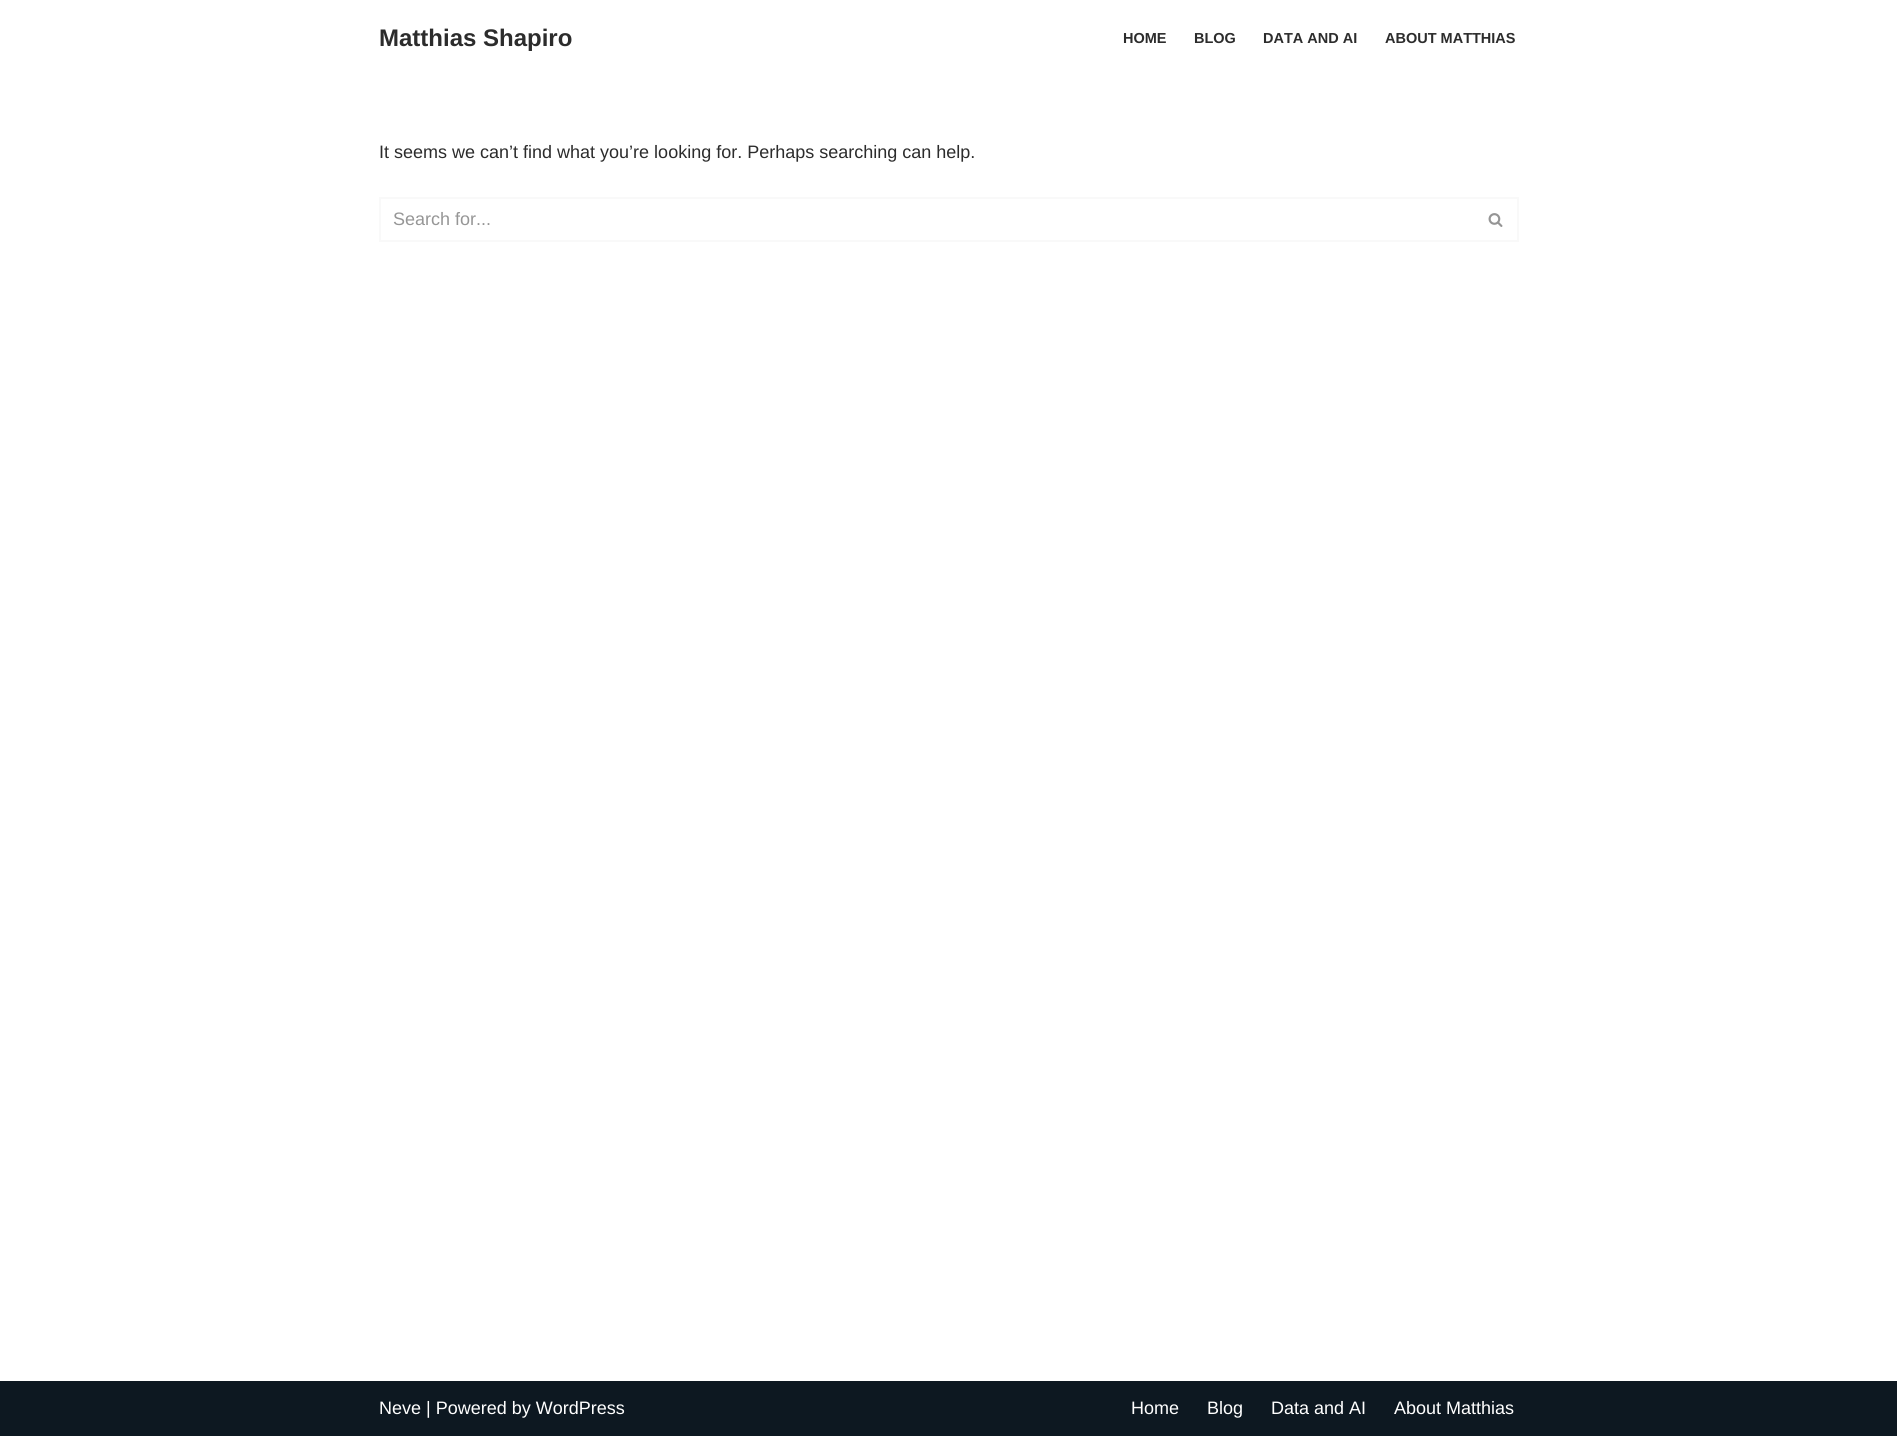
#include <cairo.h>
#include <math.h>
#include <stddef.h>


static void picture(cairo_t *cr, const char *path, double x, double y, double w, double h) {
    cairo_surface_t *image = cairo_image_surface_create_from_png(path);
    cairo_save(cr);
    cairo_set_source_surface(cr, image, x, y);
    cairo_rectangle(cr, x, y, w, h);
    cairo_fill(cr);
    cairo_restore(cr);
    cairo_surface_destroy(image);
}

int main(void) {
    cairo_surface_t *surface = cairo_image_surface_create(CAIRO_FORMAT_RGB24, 1897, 1436);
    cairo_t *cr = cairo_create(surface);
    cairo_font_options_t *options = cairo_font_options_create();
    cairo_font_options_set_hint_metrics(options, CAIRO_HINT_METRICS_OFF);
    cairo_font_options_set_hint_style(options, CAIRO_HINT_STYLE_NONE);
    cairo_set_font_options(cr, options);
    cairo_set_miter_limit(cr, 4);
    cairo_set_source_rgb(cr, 1, 1, 1);
    cairo_paint(cr);
    cairo_select_font_face(cr, "Liberation Sans", CAIRO_FONT_SLANT_NORMAL, CAIRO_FONT_WEIGHT_BOLD);
    cairo_set_font_size(cr, 24);
    cairo_set_source_rgb(cr, 0.173, 0.173, 0.173);
    cairo_move_to(cr, 379, 46);
    cairo_show_text(cr, "Matthias Shapiro");
    cairo_set_font_size(cr, 14.5);
    cairo_move_to(cr, 1123, 43);
    cairo_show_text(cr, "HOME");
    cairo_move_to(cr, 1194, 43);
    cairo_show_text(cr, "BLOG");
    cairo_move_to(cr, 1263, 43);
    cairo_show_text(cr, "DATA AND AI");
    cairo_move_to(cr, 1385, 43);
    cairo_show_text(cr, "ABOUT MATTHIAS");
    cairo_select_font_face(cr, "Liberation Sans", CAIRO_FONT_SLANT_NORMAL, CAIRO_FONT_WEIGHT_NORMAL);
    cairo_set_font_size(cr, 18);
    cairo_move_to(cr, 379, 158);
    cairo_show_text(cr, "It seems we can’t find what you’re looking for. Perhaps searching can help.");
    cairo_set_source_rgb(cr, 0.973, 0.973, 0.973);
    cairo_rectangle(cr, 379, 197, 1140, 2);
    cairo_fill(cr);
    cairo_rectangle(cr, 379, 240, 1095, 2);
    cairo_fill(cr);
    cairo_rectangle(cr, 379, 197, 2, 45);
    cairo_fill(cr);
    cairo_set_source_rgb(cr, 0.588, 0.588, 0.588);
    cairo_move_to(cr, 393, 225);
    cairo_show_text(cr, "Search for...");
    cairo_set_source_rgb(cr, 0.973, 0.973, 0.973);
    cairo_rectangle(cr, 1517, 197, 2, 45);
    cairo_fill(cr);
    cairo_rectangle(cr, 1474, 240, 45, 2);
    cairo_fill(cr);
    picture(cr, "img1.png", 1488, 213, 15, 14);
    cairo_set_source_rgb(cr, 0.051, 0.094, 0.129);
    cairo_rectangle(cr, 0, 1381, 1897, 55);
    cairo_fill(cr);
    cairo_set_source_rgb(cr, 1, 1, 1);
    cairo_move_to(cr, 379, 1414);
    cairo_show_text(cr, "Neve | Powered by WordPress");
    cairo_move_to(cr, 1131, 1414);
    cairo_show_text(cr, "Home");
    cairo_move_to(cr, 1207, 1414);
    cairo_show_text(cr, "Blog");
    cairo_move_to(cr, 1271, 1414);
    cairo_show_text(cr, "Data and AI");
    cairo_move_to(cr, 1394, 1414);
    cairo_show_text(cr, "About Matthias");
    cairo_surface_write_to_png(surface, "page.png");
    cairo_font_options_destroy(options);
    cairo_destroy(cr);
    cairo_surface_destroy(surface);
    return 0;
}
